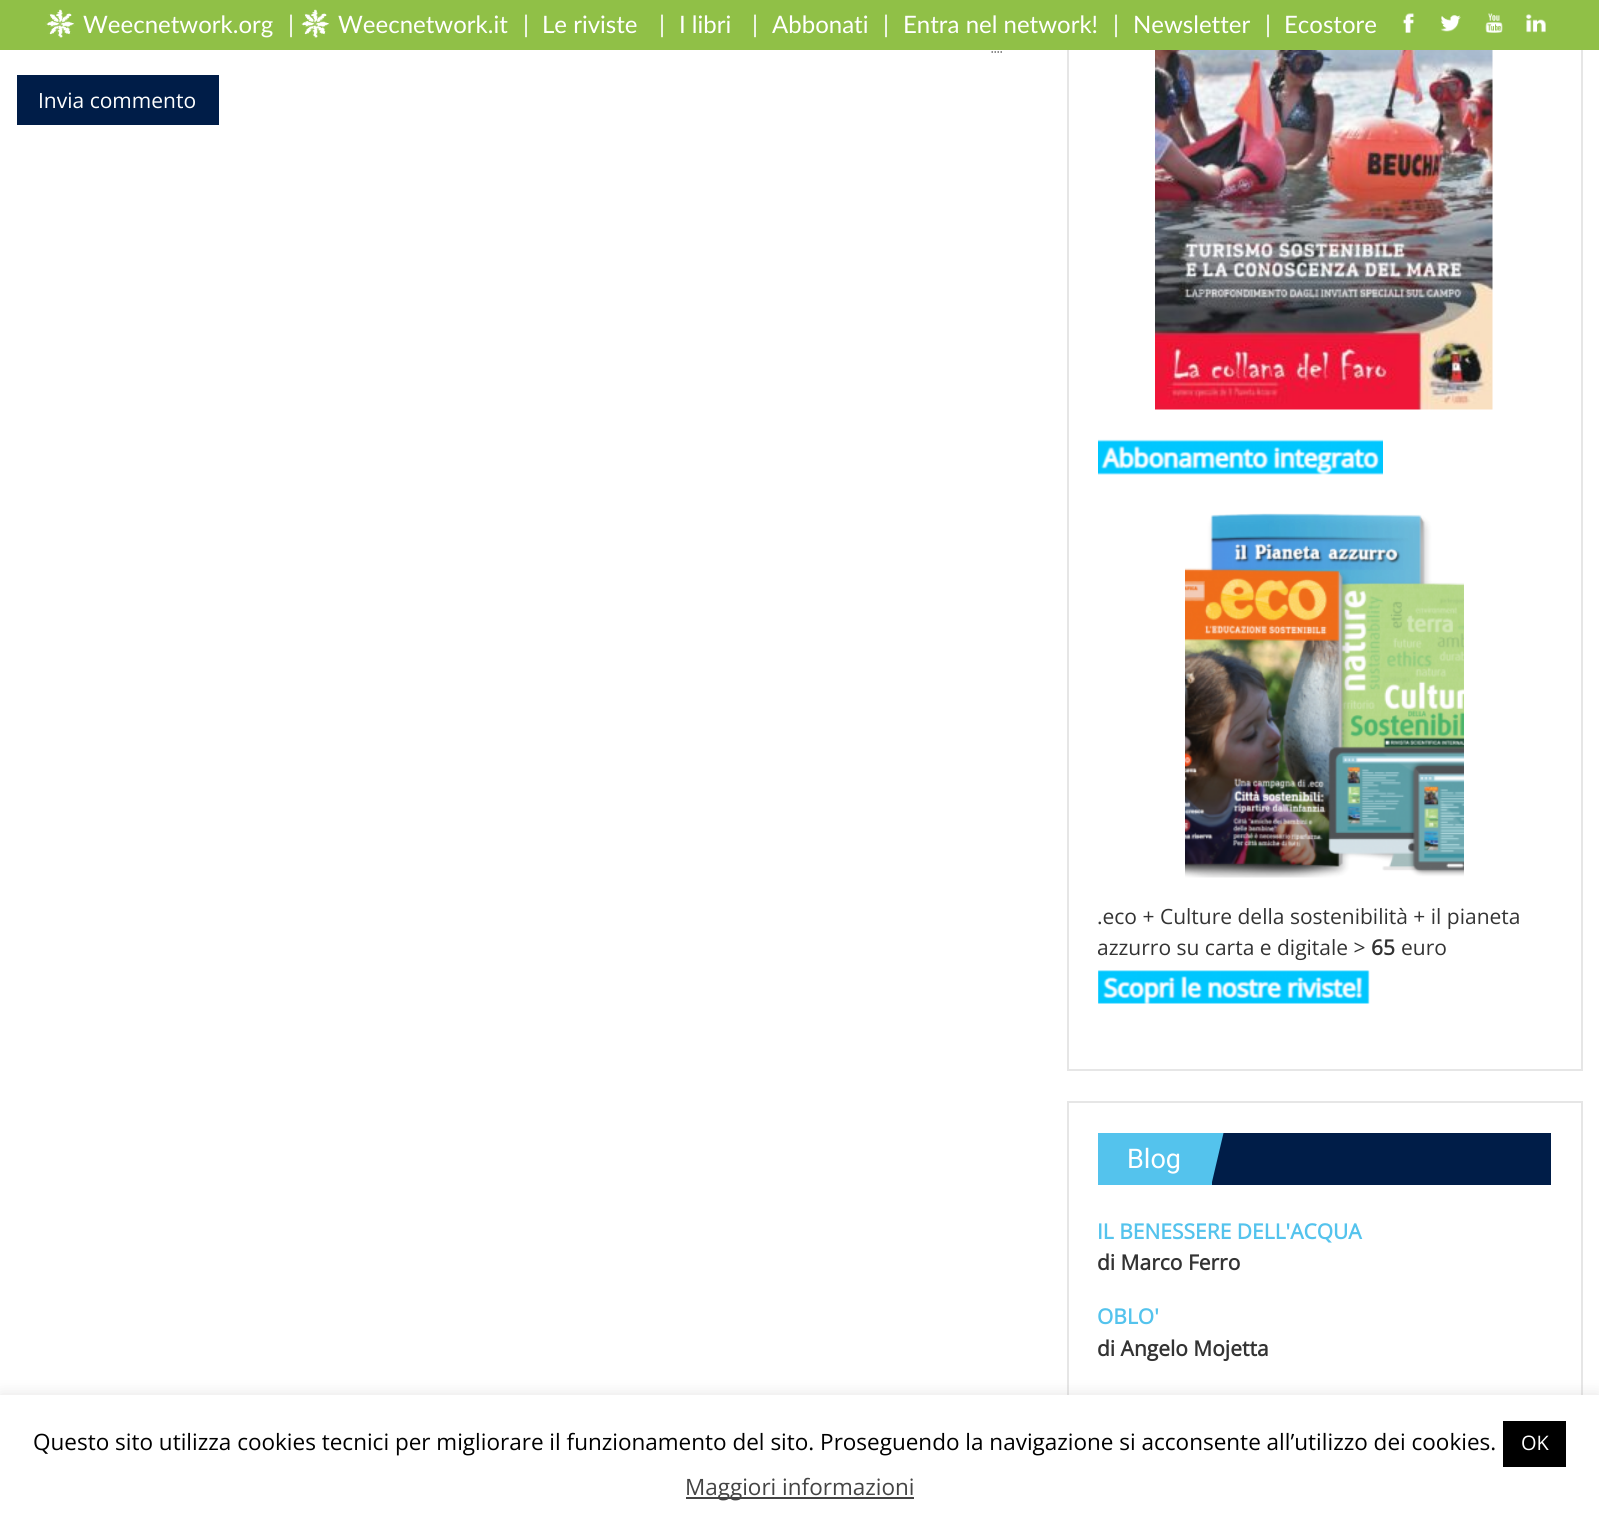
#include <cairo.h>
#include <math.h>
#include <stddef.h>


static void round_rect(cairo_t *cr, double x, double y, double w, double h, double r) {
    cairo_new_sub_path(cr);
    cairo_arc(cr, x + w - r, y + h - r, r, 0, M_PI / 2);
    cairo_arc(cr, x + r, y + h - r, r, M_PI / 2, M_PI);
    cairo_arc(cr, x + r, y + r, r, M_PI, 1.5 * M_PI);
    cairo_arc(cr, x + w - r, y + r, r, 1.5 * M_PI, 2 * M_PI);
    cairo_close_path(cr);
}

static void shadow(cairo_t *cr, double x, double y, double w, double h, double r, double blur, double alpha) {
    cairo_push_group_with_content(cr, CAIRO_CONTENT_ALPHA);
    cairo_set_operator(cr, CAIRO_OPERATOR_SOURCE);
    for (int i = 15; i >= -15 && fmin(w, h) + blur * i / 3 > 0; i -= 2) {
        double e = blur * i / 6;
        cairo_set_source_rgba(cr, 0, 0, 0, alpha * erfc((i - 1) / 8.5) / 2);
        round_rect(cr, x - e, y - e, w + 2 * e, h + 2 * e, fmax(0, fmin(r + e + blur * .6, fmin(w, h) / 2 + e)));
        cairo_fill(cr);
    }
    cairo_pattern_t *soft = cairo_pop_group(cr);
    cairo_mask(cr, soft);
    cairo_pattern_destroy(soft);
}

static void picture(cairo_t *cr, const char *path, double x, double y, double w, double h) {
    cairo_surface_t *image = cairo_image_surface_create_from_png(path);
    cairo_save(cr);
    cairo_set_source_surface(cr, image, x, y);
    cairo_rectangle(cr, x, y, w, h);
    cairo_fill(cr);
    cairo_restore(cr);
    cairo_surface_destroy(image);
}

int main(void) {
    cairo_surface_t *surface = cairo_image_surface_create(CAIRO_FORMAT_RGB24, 1599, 1520);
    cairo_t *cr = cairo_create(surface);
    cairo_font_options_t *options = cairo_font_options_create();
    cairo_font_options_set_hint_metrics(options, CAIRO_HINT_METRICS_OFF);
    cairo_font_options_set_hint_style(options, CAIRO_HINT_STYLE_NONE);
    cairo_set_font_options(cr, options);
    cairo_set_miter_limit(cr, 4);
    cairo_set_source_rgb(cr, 1, 1, 1);
    cairo_paint(cr);
    cairo_rectangle(cr, 1068, -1, 514, 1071);
    cairo_set_source_rgb(cr, 0.902, 0.902, 0.902);
    cairo_stroke(cr);
    cairo_set_source_rgb(cr, 0.565, 0.753, 0.278);
    cairo_rectangle(cr, 0, 0, 1599, 50);
    cairo_fill(cr);
    picture(cr, "img1.png", 45, 9, 30, 29);
    cairo_select_font_face(cr, "Lato", CAIRO_FONT_SLANT_NORMAL, CAIRO_FONT_WEIGHT_NORMAL);
    cairo_set_font_size(cr, 24);
    cairo_set_source_rgb(cr, 1, 1, 1);
    cairo_move_to(cr, 83, 33);
    cairo_show_text(cr, "Weecnetwork.org");
    cairo_move_to(cr, 288, 33);
    cairo_show_text(cr, "|");
    picture(cr, "img1.png", 300, 9, 30, 29);
    cairo_move_to(cr, 338, 33);
    cairo_show_text(cr, "Weecnetwork.it");
    cairo_move_to(cr, 523, 33);
    cairo_show_text(cr, "|");
    cairo_move_to(cr, 542, 33);
    cairo_show_text(cr, "Le riviste");
    cairo_move_to(cr, 659, 33);
    cairo_show_text(cr, "|");
    cairo_move_to(cr, 679, 33);
    cairo_show_text(cr, "I libri");
    cairo_move_to(cr, 752, 33);
    cairo_show_text(cr, "|");
    cairo_move_to(cr, 772, 33);
    cairo_show_text(cr, "Abbonati");
    cairo_move_to(cr, 883, 33);
    cairo_show_text(cr, "|");
    cairo_move_to(cr, 903, 33);
    cairo_show_text(cr, "Entra nel network!");
    cairo_move_to(cr, 1113, 33);
    cairo_show_text(cr, "|");
    cairo_move_to(cr, 1133, 33);
    cairo_show_text(cr, "Newsletter");
    cairo_move_to(cr, 1265, 33);
    cairo_show_text(cr, "|");
    cairo_move_to(cr, 1284, 33);
    cairo_show_text(cr, "Ecostore");
    picture(cr, "img2.png", 1402, 13, 13, 20);
    picture(cr, "img3.png", 1440, 15, 21, 17);
    picture(cr, "img4.png", 1485, 13, 18, 20);
    picture(cr, "img5.png", 1525, 14, 21, 19);
    cairo_new_path(cr);
    cairo_move_to(cr, 991.5, 52);
    cairo_line_to(cr, 1003.5, 52);
    cairo_set_source_rgb(cr, 0.4, 0.4, 0.4);
    cairo_set_line_width(cr, 1.5);
    cairo_set_dash(cr, (double[]){1.5, 1.5}, 2, 0);
    cairo_stroke(cr);
    cairo_set_source_rgb(cr, 0, 0.114, 0.282);
    cairo_rectangle(cr, 17, 75, 202, 50);
    cairo_fill(cr);
    cairo_select_font_face(cr, "Open Sans", CAIRO_FONT_SLANT_NORMAL, CAIRO_FONT_WEIGHT_NORMAL);
    cairo_set_font_size(cr, 21);
    cairo_set_source_rgb(cr, 1, 1, 1);
    cairo_move_to(cr, 38, 108);
    cairo_show_text(cr, "Invia commento");
    picture(cr, "img6.png", 1155, 50, 338, 360);
    picture(cr, "img7.png", 1098, 439, 285, 36);
    picture(cr, "img8.png", 1185, 513, 279, 365);
    cairo_set_source_rgb(cr, 0.2, 0.2, 0.2);
    cairo_move_to(cr, 1097, 924);
    cairo_show_text(cr, ".eco + Culture della sostenibilità + il pianeta");
    cairo_move_to(cr, 1097, 955);
    cairo_show_text(cr, "azzurro su carta e digitale >");
    cairo_select_font_face(cr, "Open Sans", CAIRO_FONT_SLANT_NORMAL, CAIRO_FONT_WEIGHT_BOLD);
    cairo_move_to(cr, 1371, 955);
    cairo_show_text(cr, "65");
    cairo_select_font_face(cr, "Open Sans", CAIRO_FONT_SLANT_NORMAL, CAIRO_FONT_WEIGHT_NORMAL);
    cairo_move_to(cr, 1401, 955);
    cairo_show_text(cr, "euro");
    picture(cr, "img9.png", 1098, 970, 272, 34);
    cairo_rectangle(cr, 1068, 1102, 514, 400);
    cairo_set_source_rgb(cr, 0.902, 0.902, 0.902);
    cairo_set_line_width(cr, 2);
    cairo_set_dash(cr, NULL, 0, 0);
    cairo_stroke(cr);
    cairo_set_source_rgb(cr, 0, 0.114, 0.282);
    cairo_rectangle(cr, 1212, 1133, 339, 52);
    cairo_fill(cr);
    cairo_set_source_rgb(cr, 0.329, 0.765, 0.929);
    cairo_rectangle(cr, 1098, 1133, 114, 52);
    cairo_fill(cr);
    cairo_save(cr);
    cairo_rectangle(cr, 1098, 1133, 453, 52);
    cairo_clip(cr);
    cairo_new_path(cr);
    cairo_move_to(cr, 1224, 1131);
    cairo_line_to(cr, 1212, 1182);
    cairo_line_to(cr, 1161, 1171);
    cairo_line_to(cr, 1173, 1119);
    cairo_close_path(cr);
    cairo_fill(cr);
    cairo_restore(cr);
    cairo_select_font_face(cr, "Roboto", CAIRO_FONT_SLANT_NORMAL, CAIRO_FONT_WEIGHT_NORMAL);
    cairo_set_font_size(cr, 27);
    cairo_set_source_rgb(cr, 1, 1, 1);
    cairo_move_to(cr, 1127, 1168);
    cairo_show_text(cr, "Blog");
    cairo_select_font_face(cr, "Open Sans", CAIRO_FONT_SLANT_NORMAL, CAIRO_FONT_WEIGHT_BOLD);
    cairo_set_font_size(cr, 21);
    cairo_set_source_rgb(cr, 0.329, 0.765, 0.929);
    cairo_move_to(cr, 1097, 1239);
    cairo_show_text(cr, "IL BENESSERE DELL'ACQUA");
    cairo_set_source_rgb(cr, 0.2, 0.2, 0.2);
    cairo_move_to(cr, 1097, 1270);
    cairo_show_text(cr, "di Marco Ferro");
    cairo_set_source_rgb(cr, 0.329, 0.765, 0.929);
    cairo_move_to(cr, 1097, 1324);
    cairo_show_text(cr, "OBLO'");
    cairo_set_source_rgb(cr, 0.2, 0.2, 0.2);
    cairo_move_to(cr, 1097, 1356);
    cairo_show_text(cr, "di Angelo Mojetta");
    cairo_set_source_rgb(cr, 0.675, 0.671, 0.671);
    shadow(cr, 0, 1394, 1599, 126, 0, 7.5, 0.3);
    cairo_set_source_rgb(cr, 1, 1, 1);
    cairo_rectangle(cr, 0, 1395, 1599, 125);
    cairo_fill(cr);
    cairo_select_font_face(cr, "Open Sans", CAIRO_FONT_SLANT_NORMAL, CAIRO_FONT_WEIGHT_NORMAL);
    cairo_set_font_size(cr, 22.5);
    cairo_set_source_rgb(cr, 0, 0, 0);
    cairo_move_to(cr, 33, 1450);
    cairo_show_text(cr, "Questo sito utilizza cookies tecnici per migliorare il funzionamento del sito. Proseguendo la navigazione si acconsente all’utilizzo dei cookies.");
    cairo_rectangle(cr, 1503, 1421, 63, 46);
    cairo_fill(cr);
    cairo_set_font_size(cr, 20);
    cairo_set_source_rgb(cr, 1, 1, 1);
    cairo_move_to(cr, 1521, 1450);
    cairo_show_text(cr, "OK");
    cairo_set_source_rgb(cr, 0.267, 0.267, 0.267);
    cairo_rectangle(cr, 686, 1497, 228, 2);
    cairo_fill(cr);
    cairo_set_font_size(cr, 22.5);
    cairo_move_to(cr, 685, 1495);
    cairo_show_text(cr, "Maggiori informazioni");
    cairo_surface_write_to_png(surface, "page.png");
    cairo_font_options_destroy(options);
    cairo_destroy(cr);
    cairo_surface_destroy(surface);
    return 0;
}
